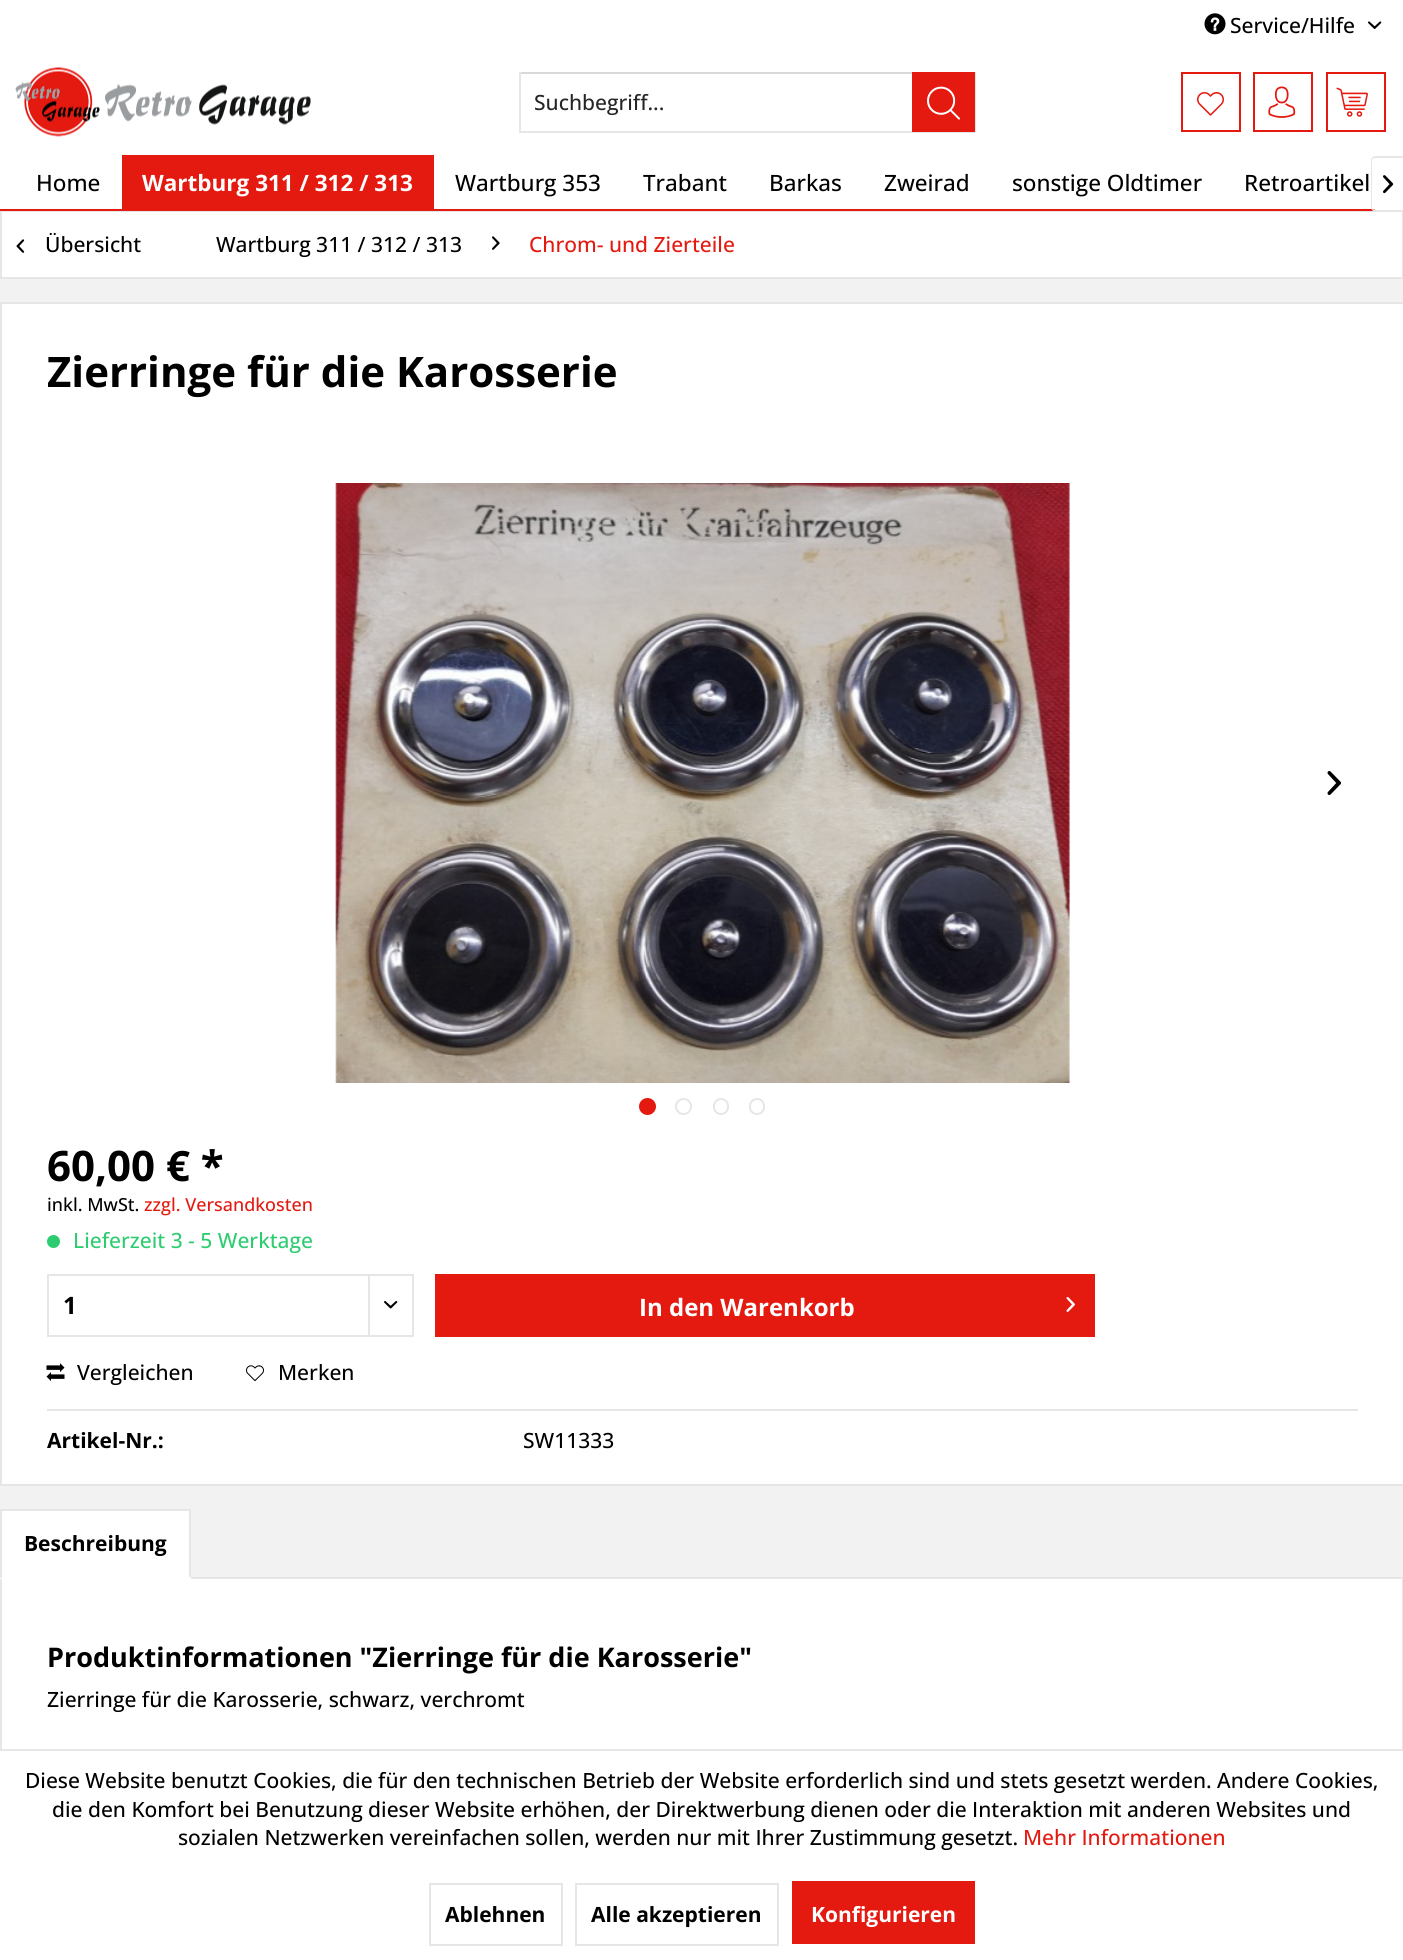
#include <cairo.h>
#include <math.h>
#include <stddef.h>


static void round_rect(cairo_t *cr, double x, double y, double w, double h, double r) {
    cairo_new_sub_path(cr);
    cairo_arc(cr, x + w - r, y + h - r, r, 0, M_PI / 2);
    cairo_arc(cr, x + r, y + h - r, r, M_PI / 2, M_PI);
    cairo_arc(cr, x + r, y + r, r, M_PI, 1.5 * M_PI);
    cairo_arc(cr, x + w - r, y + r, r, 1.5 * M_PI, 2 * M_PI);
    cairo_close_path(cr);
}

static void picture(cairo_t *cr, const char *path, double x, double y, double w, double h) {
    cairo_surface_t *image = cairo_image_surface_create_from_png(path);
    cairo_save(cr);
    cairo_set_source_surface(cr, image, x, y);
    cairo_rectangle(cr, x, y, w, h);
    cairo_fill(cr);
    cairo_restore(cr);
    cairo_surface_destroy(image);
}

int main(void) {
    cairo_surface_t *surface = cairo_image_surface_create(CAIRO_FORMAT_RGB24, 1403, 1960);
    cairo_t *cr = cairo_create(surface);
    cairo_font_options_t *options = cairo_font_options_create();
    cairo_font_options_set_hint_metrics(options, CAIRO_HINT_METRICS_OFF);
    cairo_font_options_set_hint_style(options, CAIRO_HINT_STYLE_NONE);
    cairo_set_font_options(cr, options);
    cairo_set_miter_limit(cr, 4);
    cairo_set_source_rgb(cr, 0.949, 0.949, 0.949);
    cairo_paint(cr);
    cairo_set_source_rgb(cr, 1, 1, 1);
    cairo_rectangle(cr, 0, 0, 1403, 209);
    cairo_fill(cr);
    picture(cr, "img1.png", 1204, 13, 22, 22);
    cairo_select_font_face(cr, "Open Sans Medium", CAIRO_FONT_SLANT_NORMAL, CAIRO_FONT_WEIGHT_NORMAL);
    cairo_set_font_size(cr, 21);
    cairo_set_source_rgb(cr, 0, 0, 0);
    cairo_move_to(cr, 1230, 33);
    cairo_show_text(cr, "Service/Hilfe");
    picture(cr, "img2.png", 1368, 21, 14, 8);
    picture(cr, "img3.png", 15, 67, 296, 70);
    cairo_set_source_rgb(cr, 0.851, 0.851, 0.851);
    cairo_rectangle(cr, 519, 72, 393, 2);
    cairo_fill(cr);
    cairo_set_source_rgb(cr, 0.902, 0.902, 0.902);
    cairo_rectangle(cr, 975, 72, 1, 60);
    cairo_fill(cr);
    cairo_rectangle(cr, 519, 131, 456, 2);
    cairo_fill(cr);
    cairo_rectangle(cr, 519, 72, 2, 60);
    cairo_fill(cr);
    cairo_set_source_rgb(cr, 0.149, 0.149, 0.149);
    cairo_move_to(cr, 534, 110);
    cairo_show_text(cr, "Suchbegriff...");
    cairo_set_source_rgb(cr, 0.894, 0.098, 0.063);
    cairo_rectangle(cr, 912, 72, 63, 60);
    cairo_fill(cr);
    picture(cr, "img4.png", 927, 86, 33, 34);
    cairo_rectangle(cr, 1182, 73, 58, 58);
    cairo_stroke(cr);
    picture(cr, "img5.png", 1197, 92, 27, 24);
    cairo_rectangle(cr, 1254, 73, 58, 58);
    cairo_stroke(cr);
    picture(cr, "img6.png", 1268, 86, 28, 32);
    cairo_rectangle(cr, 1327, 73, 58, 58);
    cairo_stroke(cr);
    picture(cr, "img7.png", 1336, 87, 32, 30);
    cairo_set_source_rgb(cr, 1, 1, 1);
    cairo_rectangle(cr, 1, 211, 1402, 67);
    cairo_fill_preserve(cr);
    cairo_set_source_rgb(cr, 0.902, 0.902, 0.902);
    cairo_stroke(cr);
    cairo_set_source_rgb(cr, 0.894, 0.098, 0.063);
    cairo_rectangle(cr, 0, 209, 1376, 2);
    cairo_fill(cr);
    cairo_set_font_size(cr, 22.5);
    cairo_set_source_rgb(cr, 0, 0, 0);
    cairo_move_to(cr, 36, 191);
    cairo_show_text(cr, "Home");
    cairo_set_source_rgb(cr, 0.894, 0.098, 0.063);
    cairo_rectangle(cr, 122, 155, 312, 54);
    cairo_fill(cr);
    cairo_select_font_face(cr, "Open Sans", CAIRO_FONT_SLANT_NORMAL, CAIRO_FONT_WEIGHT_BOLD);
    cairo_set_source_rgb(cr, 1, 1, 1);
    cairo_move_to(cr, 142, 191);
    cairo_show_text(cr, "Wartburg 311 / 312 / 313");
    cairo_select_font_face(cr, "Open Sans Medium", CAIRO_FONT_SLANT_NORMAL, CAIRO_FONT_WEIGHT_NORMAL);
    cairo_set_source_rgb(cr, 0, 0, 0);
    cairo_move_to(cr, 455, 191);
    cairo_show_text(cr, "Wartburg 353");
    cairo_move_to(cr, 643, 191);
    cairo_show_text(cr, "Trabant");
    cairo_move_to(cr, 769, 191);
    cairo_show_text(cr, "Barkas");
    cairo_move_to(cr, 884, 191);
    cairo_show_text(cr, "Zweirad");
    cairo_move_to(cr, 1012, 191);
    cairo_show_text(cr, "sonstige Oldtimer");
    cairo_move_to(cr, 1244, 191);
    cairo_show_text(cr, "Retroartikel");
    cairo_set_source_rgb(cr, 1, 1, 1);
    cairo_new_path(cr);
    cairo_move_to(cr, 1376, 158);
    cairo_line_to(cr, 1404, 158);
    cairo_line_to(cr, 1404, 210);
    cairo_line_to(cr, 1376, 210);
    cairo_curve_to(cr, 1374.5, 210, 1373, 208.5, 1373, 207);
    cairo_line_to(cr, 1373, 161);
    cairo_curve_to(cr, 1373, 159.5, 1374.5, 158, 1376, 158);
    cairo_close_path(cr);
    cairo_fill(cr);
    cairo_set_source_rgb(cr, 0.902, 0.902, 0.902);
    cairo_set_fill_rule(cr, CAIRO_FILL_RULE_EVEN_ODD);
    cairo_new_path(cr);
    cairo_move_to(cr, 1376, 156);
    cairo_line_to(cr, 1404, 156);
    cairo_line_to(cr, 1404, 212);
    cairo_line_to(cr, 1376, 212);
    cairo_curve_to(cr, 1373, 212, 1371, 209, 1371, 207);
    cairo_line_to(cr, 1371, 160);
    cairo_curve_to(cr, 1371, 158, 1373, 156, 1376, 156);
    cairo_close_path(cr);
    cairo_move_to(cr, 1376, 158);
    cairo_line_to(cr, 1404, 158);
    cairo_line_to(cr, 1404, 210);
    cairo_line_to(cr, 1376, 210);
    cairo_curve_to(cr, 1374, 210, 1372, 209, 1372, 207);
    cairo_line_to(cr, 1372, 160);
    cairo_curve_to(cr, 1372, 159, 1374, 158, 1376, 158);
    cairo_close_path(cr);
    cairo_fill(cr);
    picture(cr, "img8.png", 1383, 175, 11, 19);
    picture(cr, "img9.png", 16, 239, 9, 14);
    cairo_set_font_size(cr, 21);
    cairo_set_source_rgb(cr, 0, 0, 0);
    cairo_move_to(cr, 45, 252);
    cairo_show_text(cr, "Übersicht");
    cairo_move_to(cr, 216, 252);
    cairo_show_text(cr, "Wartburg 311 / 312 / 313");
    picture(cr, "img10.png", 492, 236, 8, 14);
    cairo_set_source_rgb(cr, 0.894, 0.098, 0.063);
    cairo_move_to(cr, 529, 252);
    cairo_show_text(cr, "Chrom- und Zierteile");
    cairo_set_source_rgb(cr, 1, 1, 1);
    cairo_rectangle(cr, 2, 304, 1401, 1180);
    cairo_fill(cr);
    cairo_set_source_rgb(cr, 0.902, 0.902, 0.902);
    cairo_rectangle(cr, 0, 302, 1403, 2);
    cairo_fill(cr);
    cairo_rectangle(cr, 0, 302, 2, 181);
    cairo_fill(cr);
    cairo_select_font_face(cr, "Open Sans", CAIRO_FONT_SLANT_NORMAL, CAIRO_FONT_WEIGHT_BOLD);
    cairo_set_font_size(cr, 42);
    cairo_set_source_rgb(cr, 0, 0, 0);
    cairo_move_to(cr, 47, 387);
    cairo_show_text(cr, "Zierringe für die Karosserie");
    cairo_set_source_rgb(cr, 0.902, 0.902, 0.902);
    cairo_rectangle(cr, 0, 1484, 1403, 2);
    cairo_fill(cr);
    cairo_rectangle(cr, 0, 483, 2, 1002);
    cairo_fill(cr);
    picture(cr, "img11.png", 335, 483, 735, 600);
    picture(cr, "img12.png", 1327, 771, 14, 24);
    cairo_set_source_rgb(cr, 0.894, 0.098, 0.063);
    cairo_arc(cr, 647.5, 1106.5, 7.5, 0, 2 * M_PI);
    cairo_fill_preserve(cr);
    cairo_stroke(cr);
    cairo_arc(cr, 683.5, 1106.5, 7.5, 0, 2 * M_PI);
    cairo_set_source_rgb(cr, 0.902, 0.902, 0.902);
    cairo_stroke(cr);
    round_rect(cr, 714, 1099, 14, 15, 7);
    cairo_stroke(cr);
    round_rect(cr, 750, 1099, 14, 15, 7);
    cairo_stroke(cr);
    cairo_set_source_rgb(cr, 0, 0, 0);
    cairo_move_to(cr, 47, 1181);
    cairo_show_text(cr, "60,00 € *");
    cairo_select_font_face(cr, "Open Sans Medium", CAIRO_FONT_SLANT_NORMAL, CAIRO_FONT_WEIGHT_NORMAL);
    cairo_set_font_size(cr, 18);
    cairo_move_to(cr, 47, 1211);
    cairo_show_text(cr, "inkl. MwSt.");
    cairo_set_source_rgb(cr, 0.894, 0.098, 0.063);
    cairo_move_to(cr, 144, 1211);
    cairo_show_text(cr, "zzgl. Versandkosten");
    cairo_set_source_rgb(cr, 0.18, 0.8, 0.443);
    cairo_new_path(cr);
    cairo_arc(cr, 53.5, 1241.5, 6.5, 0, 2 * M_PI);
    cairo_fill(cr);
    cairo_set_font_size(cr, 21);
    cairo_move_to(cr, 73, 1248);
    cairo_show_text(cr, "Lieferzeit 3 - 5 Werktage");
    cairo_rectangle(cr, 48, 1275, 365, 61);
    cairo_set_source_rgb(cr, 0.902, 0.902, 0.902);
    cairo_stroke(cr);
    cairo_select_font_face(cr, "Open Sans", CAIRO_FONT_SLANT_NORMAL, CAIRO_FONT_WEIGHT_BOLD);
    cairo_set_font_size(cr, 24);
    cairo_set_source_rgb(cr, 0, 0, 0);
    cairo_move_to(cr, 63, 1314);
    cairo_show_text(cr, "1");
    cairo_set_source_rgb(cr, 0.902, 0.902, 0.902);
    cairo_rectangle(cr, 368, 1275, 2, 60);
    cairo_fill(cr);
    picture(cr, "img13.png", 384, 1301, 14, 8);
    cairo_set_source_rgb(cr, 0.894, 0.098, 0.063);
    cairo_rectangle(cr, 435, 1274, 660, 63);
    cairo_fill(cr);
    cairo_set_source_rgb(cr, 1, 1, 1);
    cairo_move_to(cr, 639, 1316);
    cairo_show_text(cr, "In den Warenkorb");
    picture(cr, "img14.png", 1066, 1297, 9, 15);
    cairo_set_source_rgb(cr, 0.902, 0.902, 0.902);
    cairo_rectangle(cr, 47, 1409, 1311, 2);
    cairo_fill(cr);
    picture(cr, "img15.png", 46, 1363, 19, 18);
    cairo_select_font_face(cr, "Open Sans Medium", CAIRO_FONT_SLANT_NORMAL, CAIRO_FONT_WEIGHT_NORMAL);
    cairo_set_font_size(cr, 21);
    cairo_set_source_rgb(cr, 0, 0, 0);
    cairo_move_to(cr, 77, 1380);
    cairo_show_text(cr, "Vergleichen");
    picture(cr, "img16.png", 246, 1365, 18, 17);
    cairo_move_to(cr, 278, 1380);
    cairo_show_text(cr, "Merken");
    cairo_select_font_face(cr, "Open Sans", CAIRO_FONT_SLANT_NORMAL, CAIRO_FONT_WEIGHT_BOLD);
    cairo_move_to(cr, 47, 1448);
    cairo_show_text(cr, "Artikel-Nr.:");
    cairo_select_font_face(cr, "Open Sans Medium", CAIRO_FONT_SLANT_NORMAL, CAIRO_FONT_WEIGHT_NORMAL);
    cairo_move_to(cr, 523, 1448);
    cairo_show_text(cr, "SW11333");
    cairo_set_source_rgb(cr, 1, 1, 1);
    cairo_rectangle(cr, 2, 1511, 187, 66);
    cairo_fill(cr);
    cairo_set_source_rgb(cr, 0.902, 0.902, 0.902);
    cairo_rectangle(cr, 0, 1509, 191, 2);
    cairo_fill(cr);
    cairo_set_source_rgb(cr, 1, 1, 1);
    cairo_rectangle(cr, 2, 1579, 1400, 170);
    cairo_fill(cr);
    cairo_rectangle(cr, 1, 1578, 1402, 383);
    cairo_set_source_rgb(cr, 0.902, 0.902, 0.902);
    cairo_stroke(cr);
    cairo_rectangle(cr, 189, 1509, 2, 69);
    cairo_fill(cr);
    cairo_set_source_rgb(cr, 1, 1, 1);
    cairo_rectangle(cr, 0, 1577, 191, 2);
    cairo_fill(cr);
    cairo_set_source_rgb(cr, 0.902, 0.902, 0.902);
    cairo_rectangle(cr, 0, 1509, 2, 69);
    cairo_fill(cr);
    cairo_select_font_face(cr, "Open Sans", CAIRO_FONT_SLANT_NORMAL, CAIRO_FONT_WEIGHT_BOLD);
    cairo_set_source_rgb(cr, 0, 0, 0);
    cairo_move_to(cr, 24, 1551);
    cairo_show_text(cr, "Beschreibung");
    cairo_set_font_size(cr, 27);
    cairo_move_to(cr, 47, 1667);
    cairo_show_text(cr, "Produktinformationen \"Zierringe für die Karosserie\"");
    cairo_select_font_face(cr, "Open Sans Medium", CAIRO_FONT_SLANT_NORMAL, CAIRO_FONT_WEIGHT_NORMAL);
    cairo_set_font_size(cr, 21);
    cairo_move_to(cr, 47, 1707);
    cairo_show_text(cr, "Zierringe für die Karosserie, schwarz, verchromt");
    cairo_set_source_rgb(cr, 1, 1, 1);
    cairo_rectangle(cr, 0, 1751, 1403, 209);
    cairo_fill(cr);
    cairo_set_source_rgb(cr, 0.902, 0.902, 0.902);
    cairo_rectangle(cr, 0, 1749, 1403, 2);
    cairo_fill(cr);
    cairo_set_source_rgb(cr, 0, 0, 0);
    cairo_move_to(cr, 25, 1788);
    cairo_show_text(cr, "Diese Website benutzt Cookies, die für den technischen Betrieb der Website erforderlich sind und stets gesetzt werden. Andere Cookies,");
    cairo_move_to(cr, 52, 1817);
    cairo_show_text(cr, "die den Komfort bei Benutzung dieser Website erhöhen, der Direktwerbung dienen oder die Interaktion mit anderen Websites und");
    cairo_move_to(cr, 178, 1845);
    cairo_show_text(cr, "sozialen Netzwerken vereinfachen sollen, werden nur mit Ihrer Zustimmung gesetzt.");
    cairo_set_source_rgb(cr, 0.894, 0.098, 0.063);
    cairo_move_to(cr, 1023, 1845);
    cairo_show_text(cr, "Mehr Informationen");
    cairo_rectangle(cr, 430, 1884, 132, 61);
    cairo_set_source_rgb(cr, 0.902, 0.902, 0.902);
    cairo_stroke(cr);
    cairo_select_font_face(cr, "Open Sans", CAIRO_FONT_SLANT_NORMAL, CAIRO_FONT_WEIGHT_BOLD);
    cairo_set_source_rgb(cr, 0, 0, 0);
    cairo_move_to(cr, 445, 1922);
    cairo_show_text(cr, "Ablehnen");
    cairo_rectangle(cr, 576, 1884, 202, 61);
    cairo_set_source_rgb(cr, 0.902, 0.902, 0.902);
    cairo_stroke(cr);
    cairo_set_source_rgb(cr, 0, 0, 0);
    cairo_move_to(cr, 591, 1922);
    cairo_show_text(cr, "Alle akzeptieren");
    cairo_set_source_rgb(cr, 0.894, 0.098, 0.063);
    cairo_rectangle(cr, 792, 1881, 183, 63);
    cairo_fill(cr);
    cairo_set_source_rgb(cr, 1, 1, 1);
    cairo_move_to(cr, 811, 1922);
    cairo_show_text(cr, "Konfigurieren");
    cairo_surface_write_to_png(surface, "page.png");
    cairo_font_options_destroy(options);
    cairo_destroy(cr);
    cairo_surface_destroy(surface);
    return 0;
}
